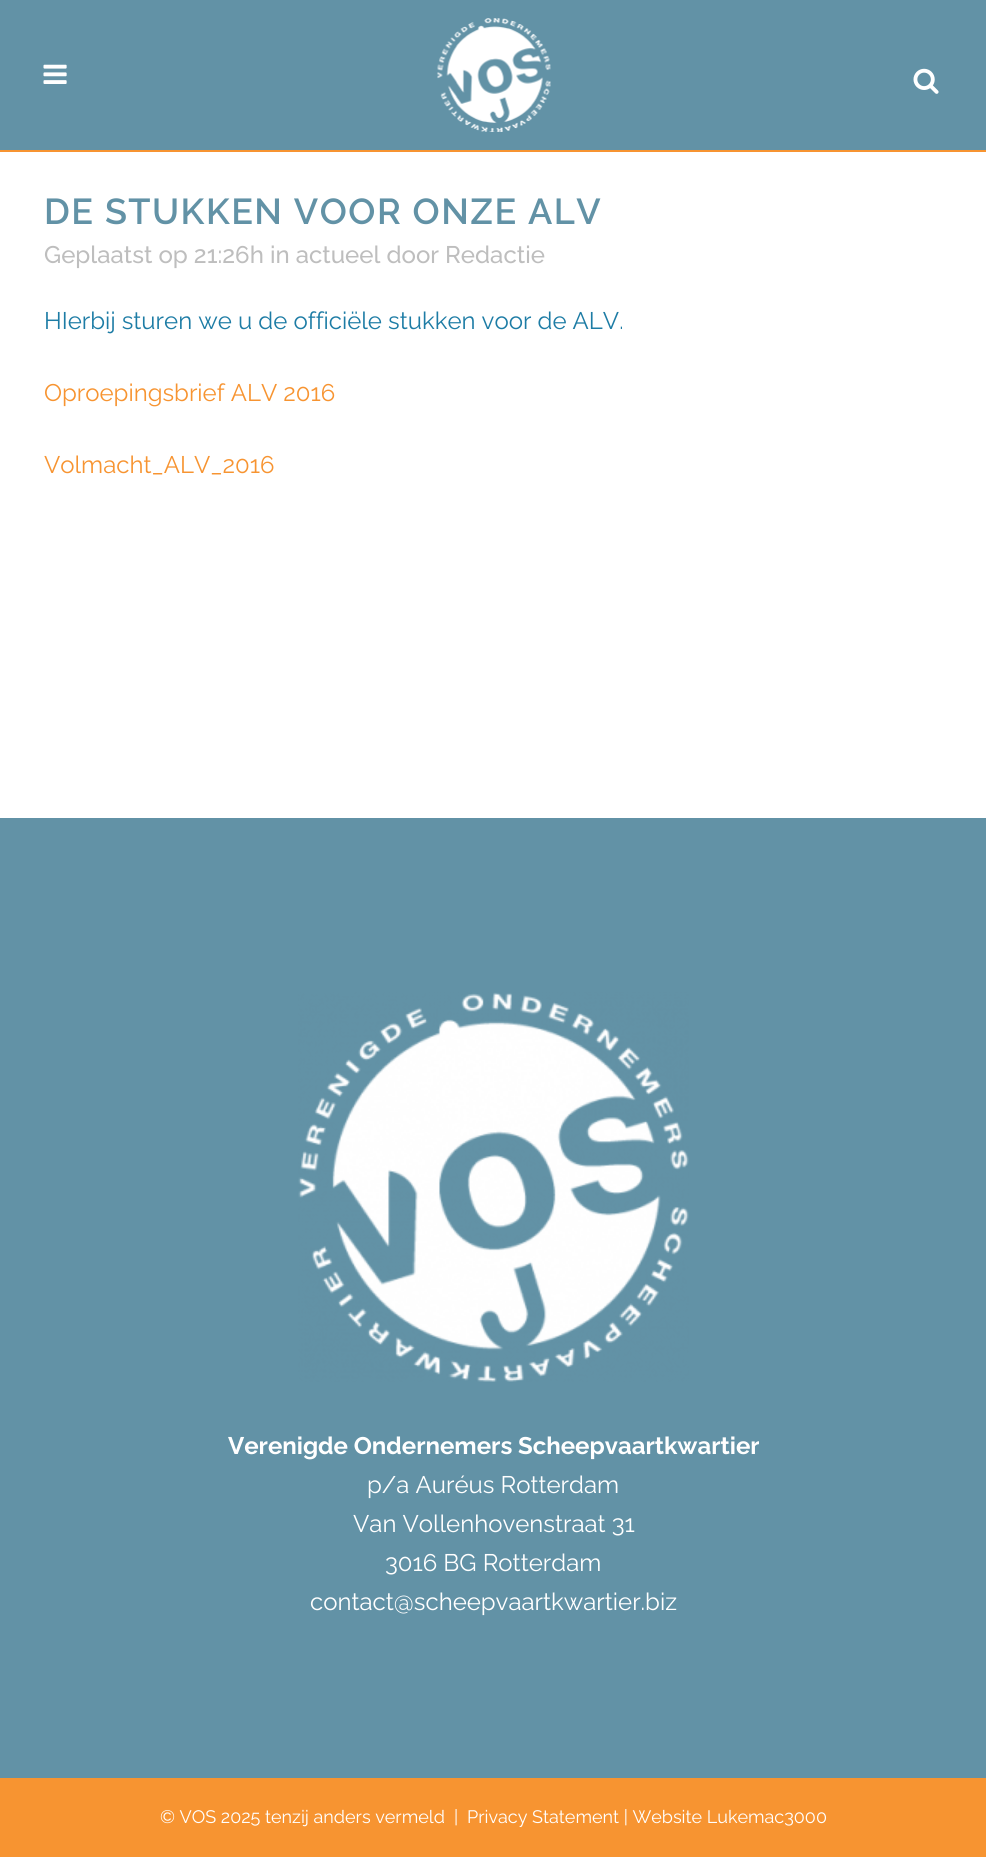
#include <cairo.h>
#include <math.h>
#include <stddef.h>


static void spaced_text(cairo_t *cr, double x, double y, const char *s, double letter, double word) {
    cairo_move_to(cr, x, y);
    while (*s) {
        char ch[5] = {0};
        int n = 0;
        do ch[n++] = *s++; while ((*s & 0xC0) == 0x80);
        cairo_show_text(cr, ch);
        cairo_rel_move_to(cr, letter + word * (*ch == ' '), 0);
    }
}

static void picture(cairo_t *cr, const char *path, double x, double y, double w, double h) {
    cairo_surface_t *image = cairo_image_surface_create_from_png(path);
    cairo_save(cr);
    cairo_set_source_surface(cr, image, x, y);
    cairo_rectangle(cr, x, y, w, h);
    cairo_fill(cr);
    cairo_restore(cr);
    cairo_surface_destroy(image);
}

int main(void) {
    cairo_surface_t *surface = cairo_image_surface_create(CAIRO_FORMAT_RGB24, 986, 1857);
    cairo_t *cr = cairo_create(surface);
    cairo_font_options_t *options = cairo_font_options_create();
    cairo_font_options_set_hint_metrics(options, CAIRO_HINT_METRICS_OFF);
    cairo_font_options_set_hint_style(options, CAIRO_HINT_STYLE_NONE);
    cairo_set_font_options(cr, options);
    cairo_set_miter_limit(cr, 4);
    cairo_set_source_rgb(cr, 1, 1, 1);
    cairo_paint(cr);
    cairo_set_source_rgb(cr, 0.384, 0.573, 0.651);
    cairo_rectangle(cr, 0, 0, 986, 150);
    cairo_fill(cr);
    cairo_set_source_rgb(cr, 0.965, 0.58, 0.192);
    cairo_rectangle(cr, 0, 150, 986, 2);
    cairo_fill(cr);
    picture(cr, "img1.png", 43, 64, 24, 20);
    picture(cr, "img2.png", 437, 18, 114, 114);
    picture(cr, "img3.png", 913, 68, 26, 26);
    cairo_select_font_face(cr, "Raleway SemiBold", CAIRO_FONT_SLANT_NORMAL, CAIRO_FONT_WEIGHT_NORMAL);
    cairo_set_font_size(cr, 36);
    cairo_set_source_rgb(cr, 0.384, 0.573, 0.651);
    spaced_text(cr, 44, 224, "DE STUKKEN VOOR ONZE ALV", 1.5, 0);
    cairo_select_font_face(cr, "Raleway Medium", CAIRO_FONT_SLANT_NORMAL, CAIRO_FONT_WEIGHT_NORMAL);
    cairo_set_font_size(cr, 24);
    cairo_set_source_rgb(cr, 0.745, 0.745, 0.745);
    cairo_move_to(cr, 44, 263);
    cairo_show_text(cr, "Geplaatst op 21:26h in actueel door Redactie");
    cairo_select_font_face(cr, "Raleway", CAIRO_FONT_SLANT_NORMAL, CAIRO_FONT_WEIGHT_NORMAL);
    cairo_set_source_rgb(cr, 0.114, 0.486, 0.647);
    cairo_move_to(cr, 44, 329);
    cairo_show_text(cr, "HIerbij sturen we u de officiële stukken voor de ALV.");
    cairo_set_source_rgb(cr, 0.965, 0.58, 0.192);
    cairo_move_to(cr, 44, 401);
    cairo_show_text(cr, "Oproepingsbrief ALV 2016");
    cairo_move_to(cr, 44, 473);
    cairo_show_text(cr, "Volmacht_ALV_2016");
    cairo_set_source_rgb(cr, 0.384, 0.573, 0.651);
    cairo_rectangle(cr, 0, 818, 986, 960);
    cairo_fill(cr);
    picture(cr, "img4.png", 298, 992, 391, 390);
    cairo_select_font_face(cr, "Raleway", CAIRO_FONT_SLANT_NORMAL, CAIRO_FONT_WEIGHT_BOLD);
    cairo_set_source_rgb(cr, 1, 1, 1);
    cairo_move_to(cr, 228, 1454);
    cairo_show_text(cr, "Verenigde Ondernemers Scheepvaartkwartier");
    cairo_select_font_face(cr, "Raleway", CAIRO_FONT_SLANT_NORMAL, CAIRO_FONT_WEIGHT_NORMAL);
    cairo_move_to(cr, 367, 1493);
    cairo_show_text(cr, "p/a Auréus Rotterdam");
    cairo_move_to(cr, 353, 1532);
    cairo_show_text(cr, "Van Vollenhovenstraat 31");
    cairo_move_to(cr, 385, 1571);
    cairo_show_text(cr, "3016 BG Rotterdam");
    cairo_move_to(cr, 310, 1610);
    cairo_show_text(cr, "contact@scheepvaartkwartier.biz");
    cairo_set_source_rgb(cr, 0.965, 0.58, 0.192);
    cairo_rectangle(cr, 0, 1778, 986, 79);
    cairo_fill(cr);
    cairo_set_font_size(cr, 18);
    cairo_set_source_rgb(cr, 1, 1, 1);
    cairo_move_to(cr, 160, 1823);
    cairo_show_text(cr, "© VOS 2025 tenzij anders vermeld  |");
    cairo_move_to(cr, 467, 1823);
    cairo_show_text(cr, "Privacy Statement | Website Lukemac3000");
    cairo_surface_write_to_png(surface, "page.png");
    cairo_font_options_destroy(options);
    cairo_destroy(cr);
    cairo_surface_destroy(surface);
    return 0;
}
